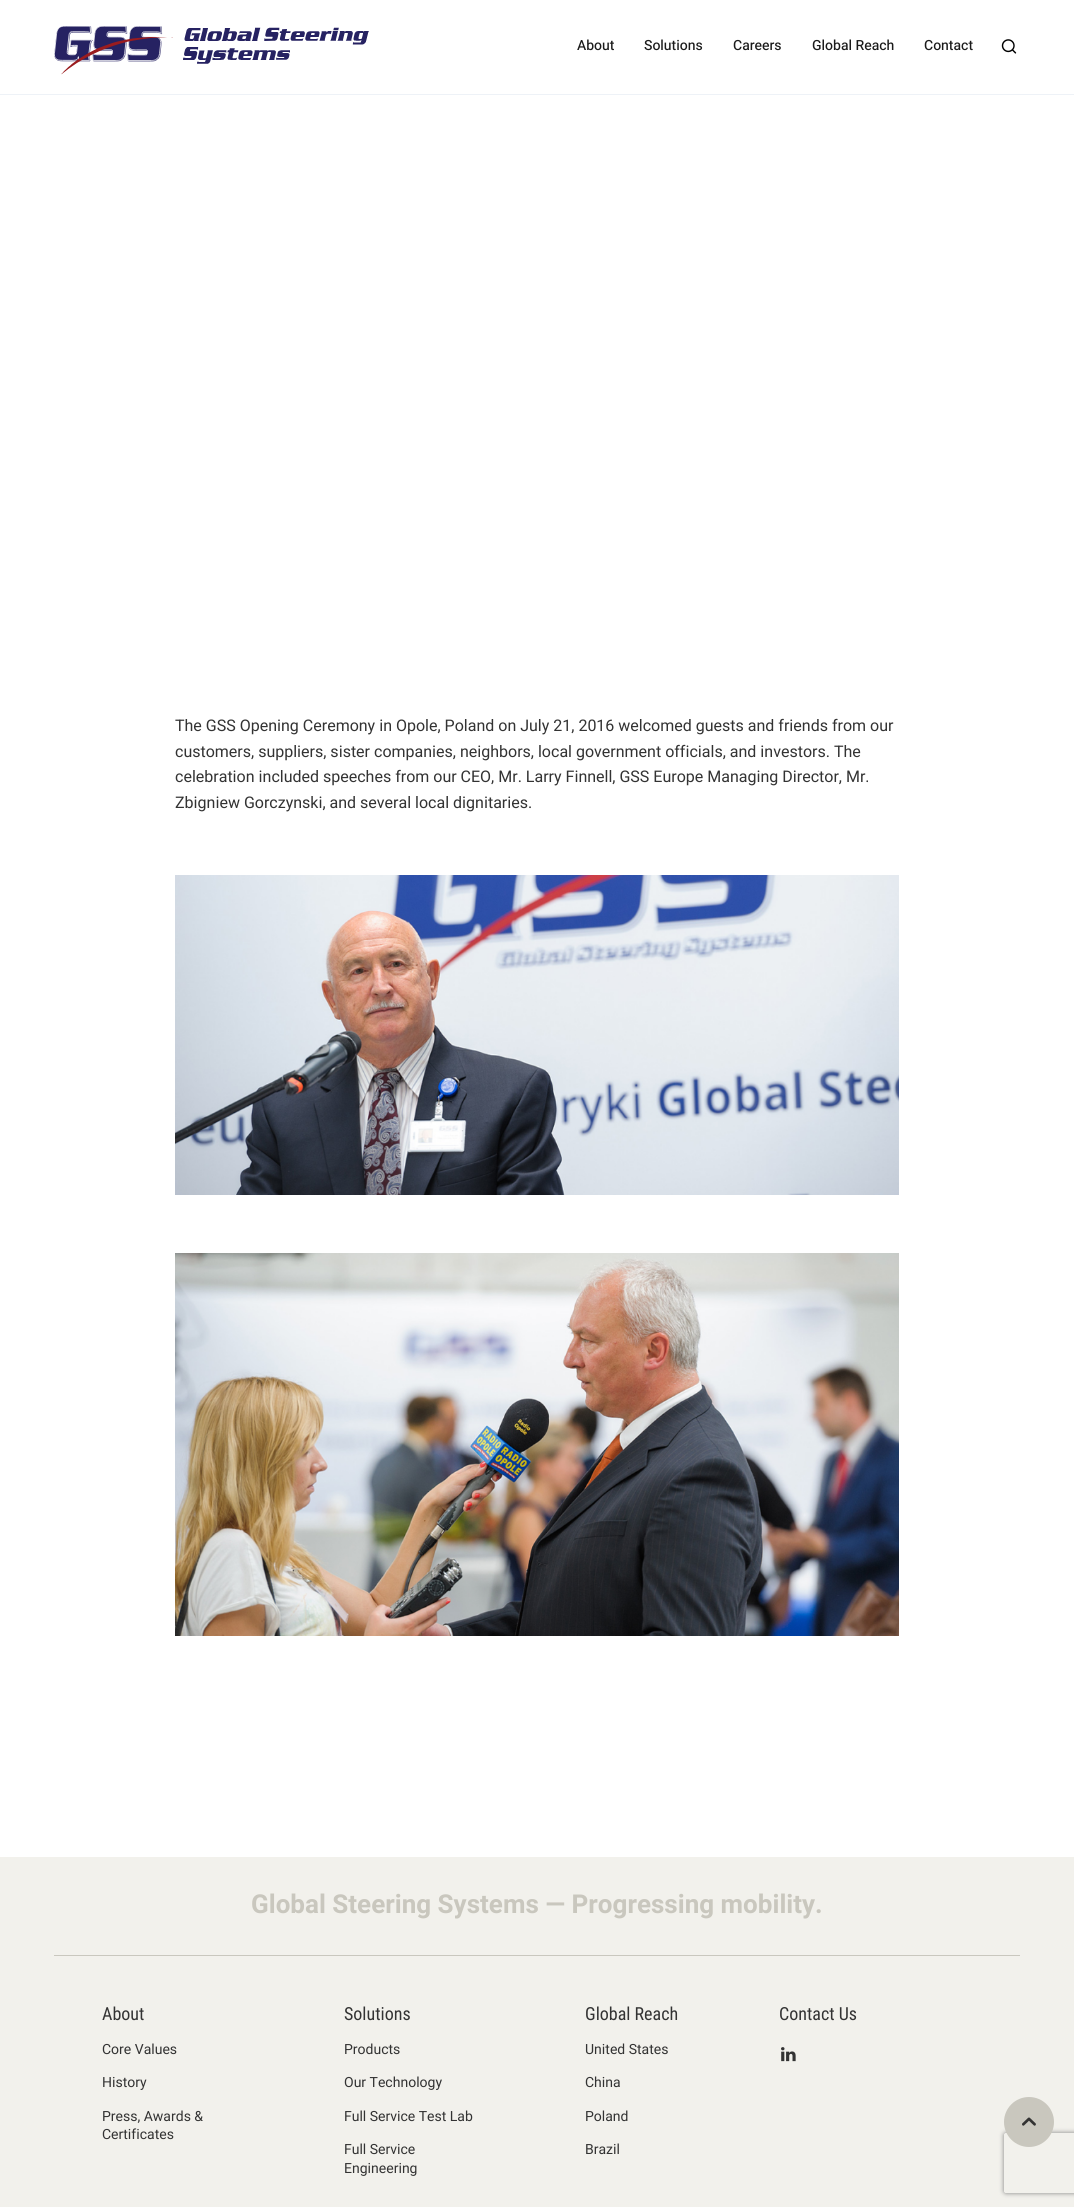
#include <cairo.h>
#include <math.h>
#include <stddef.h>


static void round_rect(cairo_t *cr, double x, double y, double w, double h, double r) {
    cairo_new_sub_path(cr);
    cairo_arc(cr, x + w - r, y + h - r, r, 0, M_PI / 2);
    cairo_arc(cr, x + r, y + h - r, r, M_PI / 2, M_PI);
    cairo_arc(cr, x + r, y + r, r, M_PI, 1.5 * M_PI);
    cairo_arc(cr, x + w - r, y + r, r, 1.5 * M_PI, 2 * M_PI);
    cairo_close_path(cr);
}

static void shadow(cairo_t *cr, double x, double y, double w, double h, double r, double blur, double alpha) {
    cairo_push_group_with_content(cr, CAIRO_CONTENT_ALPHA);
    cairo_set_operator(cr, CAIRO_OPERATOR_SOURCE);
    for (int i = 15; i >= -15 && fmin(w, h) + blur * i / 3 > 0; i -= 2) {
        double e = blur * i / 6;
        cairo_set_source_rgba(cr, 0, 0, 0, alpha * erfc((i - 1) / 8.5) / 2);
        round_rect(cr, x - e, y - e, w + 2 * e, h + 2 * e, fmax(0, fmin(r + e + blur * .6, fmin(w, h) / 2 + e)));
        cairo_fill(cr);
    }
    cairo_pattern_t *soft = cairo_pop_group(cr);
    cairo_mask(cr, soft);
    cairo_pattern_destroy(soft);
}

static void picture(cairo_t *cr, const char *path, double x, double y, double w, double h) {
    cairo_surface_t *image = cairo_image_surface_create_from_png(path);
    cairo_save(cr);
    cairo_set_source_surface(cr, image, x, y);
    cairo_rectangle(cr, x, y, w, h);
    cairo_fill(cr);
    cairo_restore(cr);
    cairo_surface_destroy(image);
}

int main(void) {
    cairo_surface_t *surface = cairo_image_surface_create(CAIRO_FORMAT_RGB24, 1074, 2207);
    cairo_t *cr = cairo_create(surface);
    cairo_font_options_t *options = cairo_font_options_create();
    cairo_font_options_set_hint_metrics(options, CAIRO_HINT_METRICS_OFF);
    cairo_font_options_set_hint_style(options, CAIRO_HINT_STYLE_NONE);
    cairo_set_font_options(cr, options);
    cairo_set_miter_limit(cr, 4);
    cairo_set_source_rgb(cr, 1, 1, 1);
    cairo_paint(cr);
    cairo_set_source_rgb(cr, 0.933, 0.949, 0.965);
    cairo_rectangle(cr, 0, 94, 1074, 1);
    cairo_fill(cr);
    picture(cr, "img1.png", 54, 26, 315, 49);
    cairo_select_font_face(cr, "Heebo Medium", CAIRO_FONT_SLANT_NORMAL, CAIRO_FONT_WEIGHT_NORMAL);
    cairo_set_font_size(cr, 14);
    cairo_set_source_rgb(cr, 0.106, 0.106, 0.106);
    cairo_move_to(cr, 577, 50);
    cairo_show_text(cr, "About");
    cairo_move_to(cr, 644, 50);
    cairo_show_text(cr, "Solutions");
    cairo_move_to(cr, 733, 50);
    cairo_show_text(cr, "Careers");
    cairo_move_to(cr, 812, 50);
    cairo_show_text(cr, "Global Reach");
    cairo_move_to(cr, 924, 50);
    cairo_show_text(cr, "Contact");
    picture(cr, "img2.png", 1001, 39, 16, 15);
    cairo_select_font_face(cr, "Heebo", CAIRO_FONT_SLANT_NORMAL, CAIRO_FONT_WEIGHT_NORMAL);
    cairo_set_font_size(cr, 16);
    cairo_set_source_rgb(cr, 0.2, 0.2, 0.2);
    cairo_move_to(cr, 175, 731);
    cairo_show_text(cr, "The GSS Opening Ceremony in Opole, Poland on July 21, 2016 welcomed guests and friends from our");
    cairo_move_to(cr, 175, 757);
    cairo_show_text(cr, "customers, suppliers, sister companies, neighbors, local government officials, and investors. The");
    cairo_move_to(cr, 175, 782);
    cairo_show_text(cr, "celebration included speeches from our CEO, Mr. Larry Finnell, GSS Europe Managing Director, Mr.");
    cairo_move_to(cr, 175, 808);
    cairo_show_text(cr, "Zbigniew Gorczynski, and several local dignitaries.");
    picture(cr, "img3.png", 175, 875, 724, 320);
    picture(cr, "img4.png", 175, 1253, 724, 383);
    cairo_set_source_rgb(cr, 0.949, 0.945, 0.922);
    cairo_rectangle(cr, 0, 1857, 1074, 350);
    cairo_fill(cr);
    cairo_set_source_rgb(cr, 0.788, 0.78, 0.745);
    cairo_rectangle(cr, 54, 1955, 966, 1);
    cairo_fill(cr);
    cairo_select_font_face(cr, "Heebo", CAIRO_FONT_SLANT_NORMAL, CAIRO_FONT_WEIGHT_BOLD);
    cairo_set_font_size(cr, 26);
    cairo_move_to(cr, 251, 1913);
    cairo_show_text(cr, "Global Steering Systems — Progressing mobility.");
    cairo_select_font_face(cr, "Roboto Condensed", CAIRO_FONT_SLANT_NORMAL, CAIRO_FONT_WEIGHT_NORMAL);
    cairo_set_font_size(cr, 18);
    cairo_set_source_rgb(cr, 0.2, 0.2, 0.2);
    cairo_move_to(cr, 102, 2020);
    cairo_show_text(cr, "About");
    cairo_select_font_face(cr, "Heebo", CAIRO_FONT_SLANT_NORMAL, CAIRO_FONT_WEIGHT_NORMAL);
    cairo_set_font_size(cr, 14);
    cairo_move_to(cr, 102, 2054);
    cairo_show_text(cr, "Core Values");
    cairo_move_to(cr, 102, 2087);
    cairo_show_text(cr, "History");
    cairo_move_to(cr, 102, 2121);
    cairo_show_text(cr, "Press, Awards &");
    cairo_move_to(cr, 102, 2139);
    cairo_show_text(cr, "Certificates");
    cairo_select_font_face(cr, "Roboto Condensed", CAIRO_FONT_SLANT_NORMAL, CAIRO_FONT_WEIGHT_NORMAL);
    cairo_set_font_size(cr, 18);
    cairo_move_to(cr, 344, 2020);
    cairo_show_text(cr, "Solutions");
    cairo_select_font_face(cr, "Heebo", CAIRO_FONT_SLANT_NORMAL, CAIRO_FONT_WEIGHT_NORMAL);
    cairo_set_font_size(cr, 14);
    cairo_move_to(cr, 344, 2054);
    cairo_show_text(cr, "Products");
    cairo_move_to(cr, 344, 2087);
    cairo_show_text(cr, "Our Technology");
    cairo_move_to(cr, 344, 2121);
    cairo_show_text(cr, "Full Service Test Lab");
    cairo_move_to(cr, 344, 2154);
    cairo_show_text(cr, "Full Service");
    cairo_move_to(cr, 344, 2173);
    cairo_show_text(cr, "Engineering");
    cairo_select_font_face(cr, "Roboto Condensed", CAIRO_FONT_SLANT_NORMAL, CAIRO_FONT_WEIGHT_NORMAL);
    cairo_set_font_size(cr, 18);
    cairo_move_to(cr, 585, 2020);
    cairo_show_text(cr, "Global Reach");
    cairo_select_font_face(cr, "Heebo", CAIRO_FONT_SLANT_NORMAL, CAIRO_FONT_WEIGHT_NORMAL);
    cairo_set_font_size(cr, 14);
    cairo_move_to(cr, 585, 2054);
    cairo_show_text(cr, "United States");
    cairo_move_to(cr, 585, 2087);
    cairo_show_text(cr, "China");
    cairo_move_to(cr, 585, 2121);
    cairo_show_text(cr, "Poland");
    cairo_move_to(cr, 585, 2154);
    cairo_show_text(cr, "Brazil");
    cairo_select_font_face(cr, "Roboto Condensed", CAIRO_FONT_SLANT_NORMAL, CAIRO_FONT_WEIGHT_NORMAL);
    cairo_set_font_size(cr, 18);
    cairo_move_to(cr, 779, 2020);
    cairo_show_text(cr, "Contact Us");
    picture(cr, "img5.png", 781, 2047, 15, 15);
    cairo_save(cr);
    cairo_set_fill_rule(cr, CAIRO_FILL_RULE_EVEN_ODD);
    cairo_new_path(cr);
    cairo_move_to(cr, 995, 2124);
    cairo_line_to(cr, 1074, 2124);
    cairo_line_to(cr, 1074, 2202);
    cairo_line_to(cr, 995, 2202);
    cairo_close_path(cr);
    cairo_move_to(cr, 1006, 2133);
    cairo_line_to(cr, 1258, 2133);
    cairo_curve_to(cr, 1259, 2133, 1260, 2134, 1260, 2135);
    cairo_line_to(cr, 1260, 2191);
    cairo_curve_to(cr, 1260, 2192, 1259, 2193, 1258, 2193);
    cairo_line_to(cr, 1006, 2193);
    cairo_curve_to(cr, 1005, 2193, 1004, 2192, 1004, 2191);
    cairo_line_to(cr, 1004, 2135);
    cairo_curve_to(cr, 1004, 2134, 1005, 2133, 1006, 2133);
    cairo_close_path(cr);
    cairo_clip(cr);
    cairo_set_source_rgb(cr, 0.502, 0.502, 0.502);
    shadow(cr, 1004, 2133, 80, 60, 2, 2.5, 1);
    cairo_restore(cr);
    cairo_set_source_rgb(cr, 0.788, 0.78, 0.745);
    cairo_arc(cr, 1029, 2122, 25, 0, 2 * M_PI);
    cairo_fill(cr);
    picture(cr, "img6.png", 1022, 2117, 14, 9);
    cairo_surface_write_to_png(surface, "page.png");
    cairo_font_options_destroy(options);
    cairo_destroy(cr);
    cairo_surface_destroy(surface);
    return 0;
}
